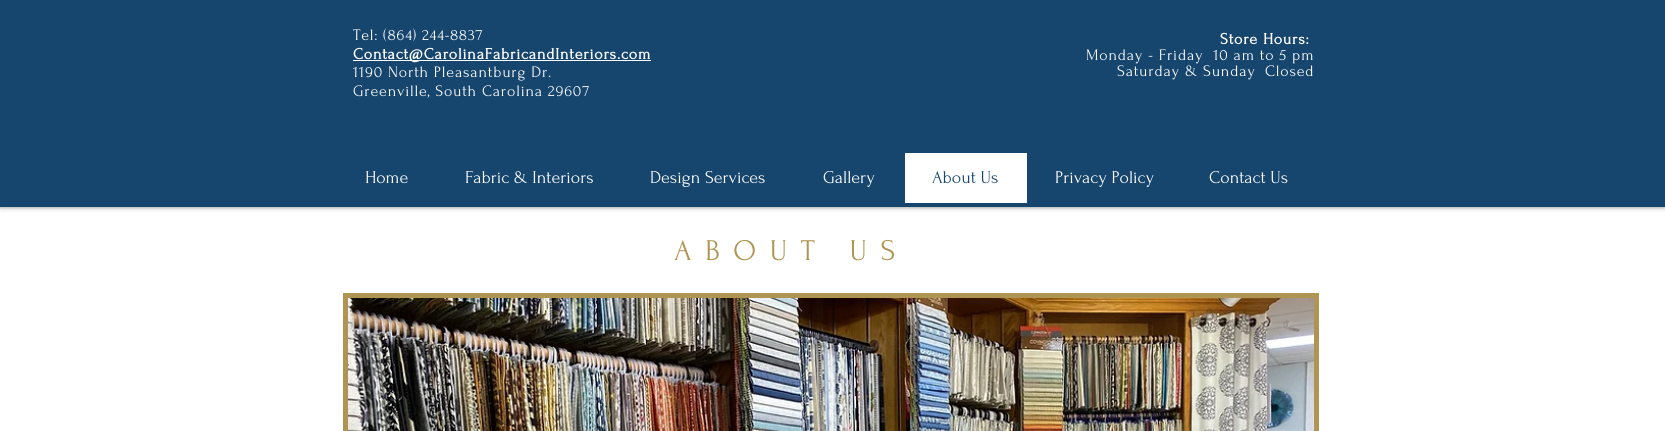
#include <cairo.h>
#include <math.h>
#include <stddef.h>


static void spaced_text(cairo_t *cr, double x, double y, const char *s, double letter, double word) {
    cairo_move_to(cr, x, y);
    while (*s) {
        char ch[5] = {0};
        int n = 0;
        do ch[n++] = *s++; while ((*s & 0xC0) == 0x80);
        cairo_show_text(cr, ch);
        cairo_rel_move_to(cr, letter + word * (*ch == ' '), 0);
    }
}

static void round_rect(cairo_t *cr, double x, double y, double w, double h, double r) {
    cairo_new_sub_path(cr);
    cairo_arc(cr, x + w - r, y + h - r, r, 0, M_PI / 2);
    cairo_arc(cr, x + r, y + h - r, r, M_PI / 2, M_PI);
    cairo_arc(cr, x + r, y + r, r, M_PI, 1.5 * M_PI);
    cairo_arc(cr, x + w - r, y + r, r, 1.5 * M_PI, 2 * M_PI);
    cairo_close_path(cr);
}

static void shadow(cairo_t *cr, double x, double y, double w, double h, double r, double blur, double alpha) {
    cairo_push_group_with_content(cr, CAIRO_CONTENT_ALPHA);
    cairo_set_operator(cr, CAIRO_OPERATOR_SOURCE);
    for (int i = 15; i >= -15 && fmin(w, h) + blur * i / 3 > 0; i -= 2) {
        double e = blur * i / 6;
        cairo_set_source_rgba(cr, 0, 0, 0, alpha * erfc((i - 1) / 8.5) / 2);
        round_rect(cr, x - e, y - e, w + 2 * e, h + 2 * e, fmax(0, fmin(r + e + blur * .6, fmin(w, h) / 2 + e)));
        cairo_fill(cr);
    }
    cairo_pattern_t *soft = cairo_pop_group(cr);
    cairo_mask(cr, soft);
    cairo_pattern_destroy(soft);
}

static void picture(cairo_t *cr, const char *path, double x, double y, double w, double h) {
    cairo_surface_t *image = cairo_image_surface_create_from_png(path);
    cairo_save(cr);
    cairo_set_source_surface(cr, image, x, y);
    cairo_rectangle(cr, x, y, w, h);
    cairo_fill(cr);
    cairo_restore(cr);
    cairo_surface_destroy(image);
}

int main(void) {
    cairo_surface_t *surface = cairo_image_surface_create(CAIRO_FORMAT_RGB24, 1665, 431);
    cairo_t *cr = cairo_create(surface);
    cairo_font_options_t *options = cairo_font_options_create();
    cairo_font_options_set_hint_metrics(options, CAIRO_HINT_METRICS_OFF);
    cairo_font_options_set_hint_style(options, CAIRO_HINT_STYLE_NONE);
    cairo_set_font_options(cr, options);
    cairo_set_miter_limit(cr, 4);
    cairo_set_source_rgb(cr, 1, 1, 1);
    cairo_paint(cr);
    cairo_set_source_rgb(cr, 0, 0, 0);
    shadow(cr, 0, 0, 1665, 207, 0, 2.5, 0.5);
    cairo_set_source_rgb(cr, 0.086, 0.271, 0.427);
    cairo_rectangle(cr, 0, 0, 1665, 207);
    cairo_fill(cr);
    cairo_select_font_face(cr, "Forum", CAIRO_FONT_SLANT_NORMAL, CAIRO_FONT_WEIGHT_NORMAL);
    cairo_set_font_size(cr, 16);
    cairo_set_source_rgb(cr, 1, 1, 1);
    spaced_text(cr, 353, 40, "Tel: (864) 244-8837", 0.8, 0);
    cairo_rectangle(cr, 353, 60, 298, 1);
    cairo_fill(cr);
    cairo_select_font_face(cr, "Forum", CAIRO_FONT_SLANT_NORMAL, CAIRO_FONT_WEIGHT_BOLD);
    spaced_text(cr, 353, 59, "Contact@CarolinaFabricandInteriors.com", 0.8, 0);
    cairo_select_font_face(cr, "Forum", CAIRO_FONT_SLANT_NORMAL, CAIRO_FONT_WEIGHT_NORMAL);
    spaced_text(cr, 353, 77, "1190 North Pleasantburg Dr.", 0.8, 0);
    spaced_text(cr, 353, 96, "Greenville, South Carolina 29607", 0.8, 0);
    cairo_select_font_face(cr, "Forum", CAIRO_FONT_SLANT_NORMAL, CAIRO_FONT_WEIGHT_BOLD);
    spaced_text(cr, 1220, 44, "Store Hours:", 0.8, 0);
    cairo_select_font_face(cr, "Forum", CAIRO_FONT_SLANT_NORMAL, CAIRO_FONT_WEIGHT_NORMAL);
    spaced_text(cr, 1086, 60, "Monday - Friday  10 am to 5 pm", 0.8, 0);
    spaced_text(cr, 1117, 76, "Saturday & Sunday", 0.8, 0);
    spaced_text(cr, 1265, 76, "Closed", 0.8, 0);
    cairo_set_font_size(cr, 18);
    cairo_move_to(cr, 365, 183);
    cairo_show_text(cr, "Home");
    cairo_move_to(cr, 465, 183);
    cairo_show_text(cr, "Fabric & Interiors");
    cairo_move_to(cr, 650, 183);
    cairo_show_text(cr, "Design Services");
    cairo_move_to(cr, 823, 183);
    cairo_show_text(cr, "Gallery");
    cairo_rectangle(cr, 905, 153, 122, 50);
    cairo_fill(cr);
    cairo_set_source_rgb(cr, 0.086, 0.271, 0.427);
    cairo_move_to(cr, 932, 183);
    cairo_show_text(cr, "About Us");
    cairo_set_source_rgb(cr, 1, 1, 1);
    cairo_move_to(cr, 1055, 183);
    cairo_show_text(cr, "Privacy Policy");
    cairo_move_to(cr, 1209, 183);
    cairo_show_text(cr, "Contact Us");
    cairo_set_font_size(cr, 30);
    cairo_set_source_rgb(cr, 0.686, 0.58, 0.325);
    spaced_text(cr, 674, 260, "ABOUT US", 13.5, 0);
    cairo_rectangle(cr, 343, 293, 976, 138);
    cairo_fill(cr);
    picture(cr, "img1.png", 348, 298, 966, 133);
    cairo_surface_write_to_png(surface, "page.png");
    cairo_font_options_destroy(options);
    cairo_destroy(cr);
    cairo_surface_destroy(surface);
    return 0;
}
